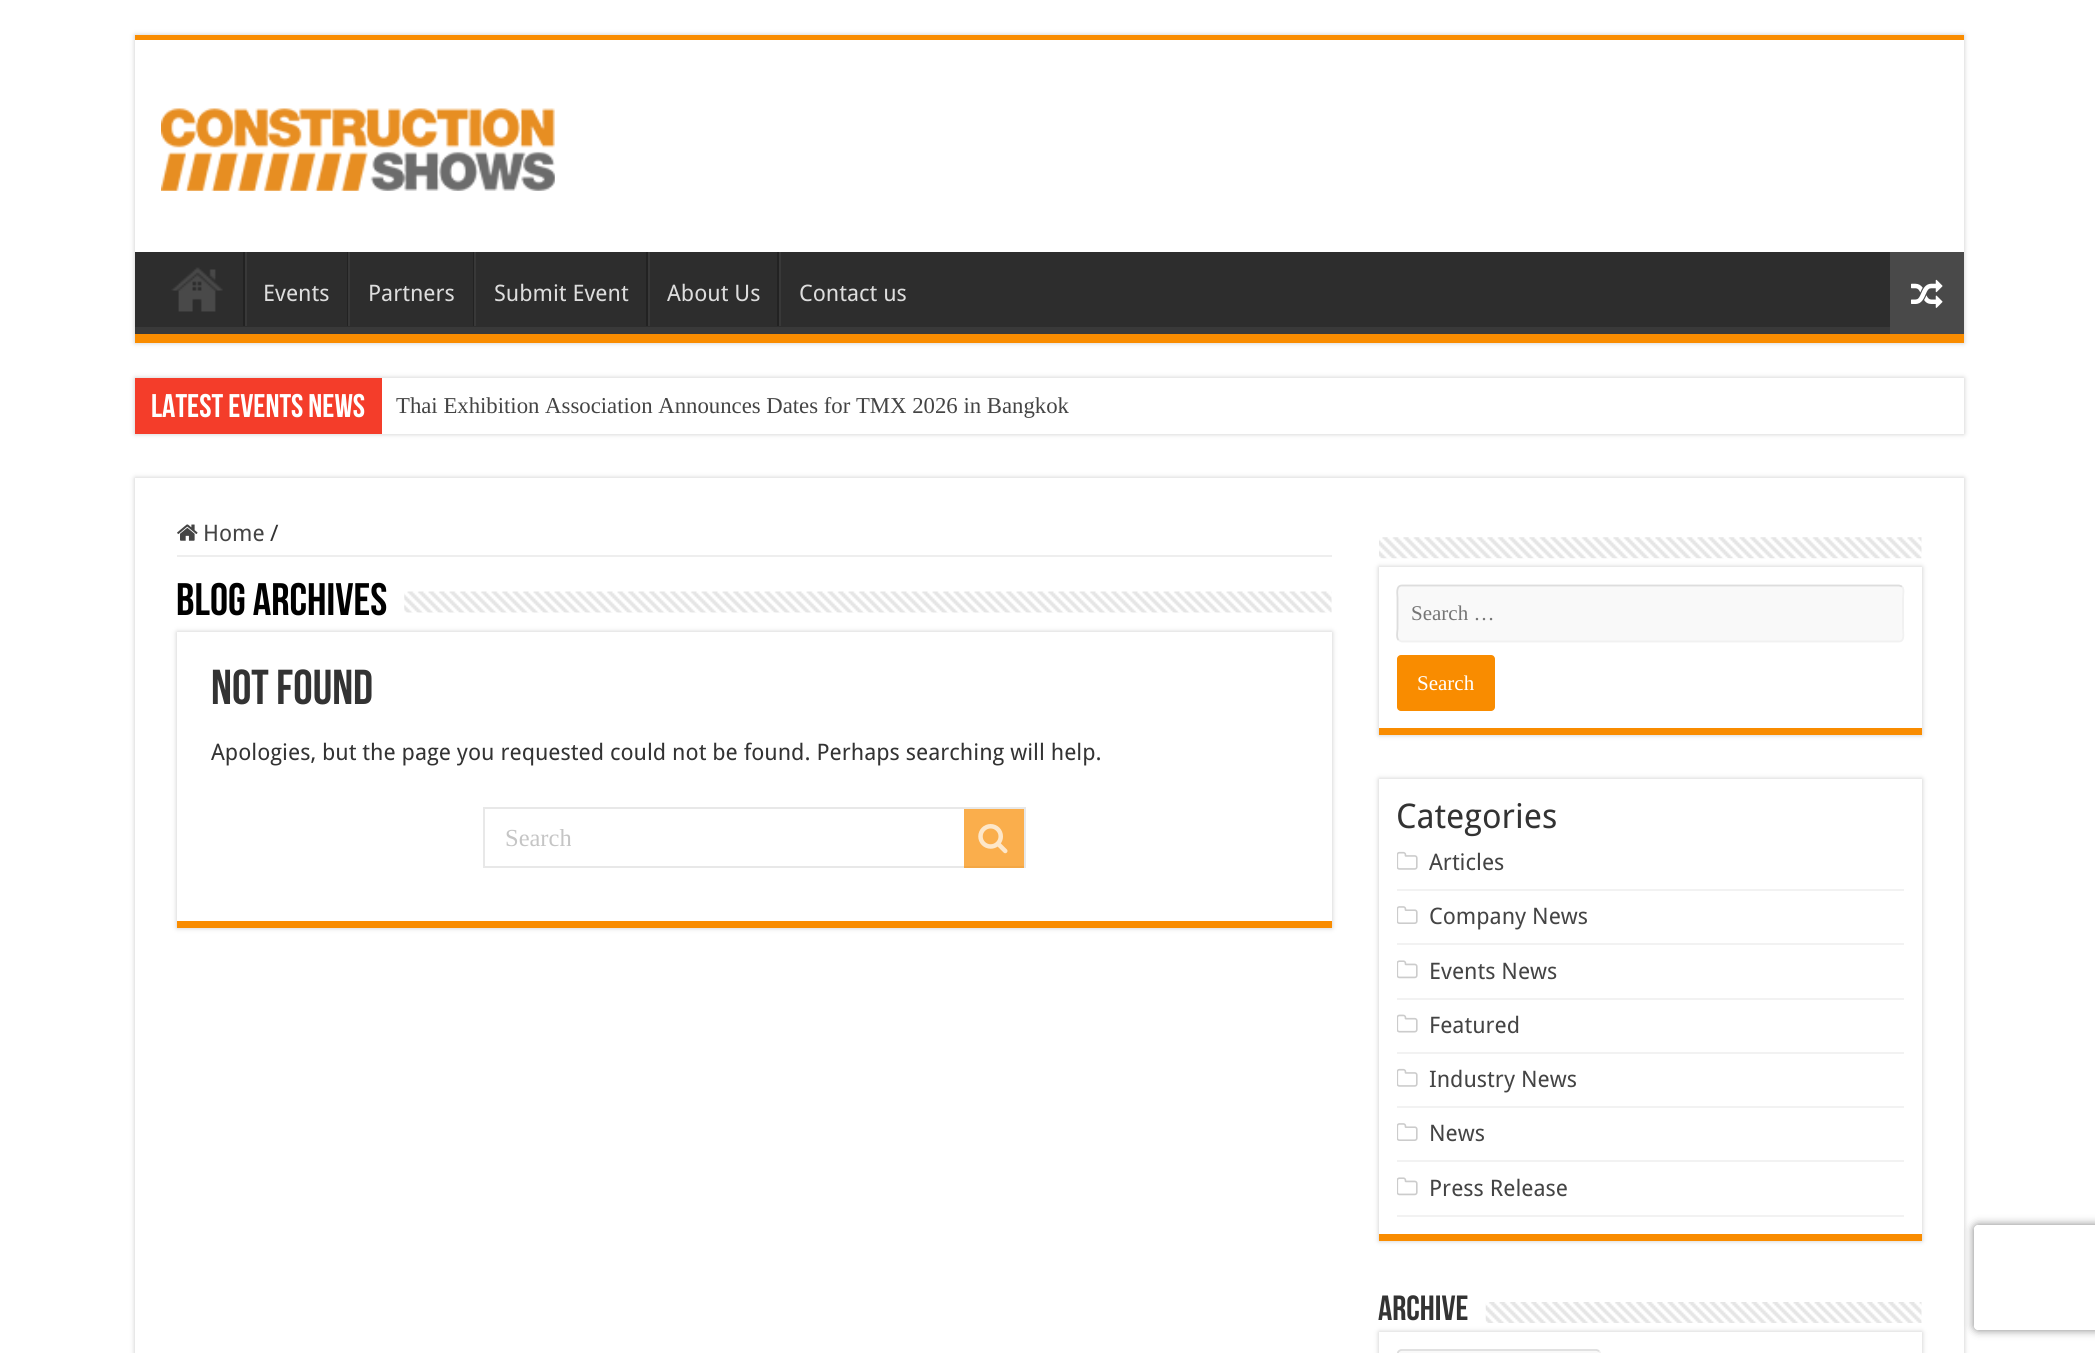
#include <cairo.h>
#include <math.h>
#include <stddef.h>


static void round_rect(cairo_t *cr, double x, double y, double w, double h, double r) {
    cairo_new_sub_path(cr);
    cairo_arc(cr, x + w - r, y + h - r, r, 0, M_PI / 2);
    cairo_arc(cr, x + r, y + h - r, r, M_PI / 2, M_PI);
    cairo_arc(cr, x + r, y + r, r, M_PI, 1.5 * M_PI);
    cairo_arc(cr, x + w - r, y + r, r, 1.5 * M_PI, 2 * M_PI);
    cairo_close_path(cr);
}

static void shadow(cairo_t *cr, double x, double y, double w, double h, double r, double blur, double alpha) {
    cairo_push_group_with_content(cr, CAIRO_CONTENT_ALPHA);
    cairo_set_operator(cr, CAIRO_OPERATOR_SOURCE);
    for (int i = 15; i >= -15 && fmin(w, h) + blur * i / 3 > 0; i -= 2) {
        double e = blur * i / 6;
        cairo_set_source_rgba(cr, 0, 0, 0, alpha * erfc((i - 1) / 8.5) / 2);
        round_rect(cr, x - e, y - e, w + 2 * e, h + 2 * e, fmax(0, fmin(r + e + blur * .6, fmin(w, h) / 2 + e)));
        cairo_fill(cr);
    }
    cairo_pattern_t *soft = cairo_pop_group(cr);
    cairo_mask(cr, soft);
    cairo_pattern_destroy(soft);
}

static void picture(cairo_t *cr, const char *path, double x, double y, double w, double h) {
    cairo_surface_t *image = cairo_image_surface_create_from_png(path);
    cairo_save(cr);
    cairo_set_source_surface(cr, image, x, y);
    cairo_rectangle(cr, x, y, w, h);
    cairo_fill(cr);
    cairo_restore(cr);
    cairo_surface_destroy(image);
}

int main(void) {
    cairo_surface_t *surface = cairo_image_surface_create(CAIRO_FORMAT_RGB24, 2095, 1353);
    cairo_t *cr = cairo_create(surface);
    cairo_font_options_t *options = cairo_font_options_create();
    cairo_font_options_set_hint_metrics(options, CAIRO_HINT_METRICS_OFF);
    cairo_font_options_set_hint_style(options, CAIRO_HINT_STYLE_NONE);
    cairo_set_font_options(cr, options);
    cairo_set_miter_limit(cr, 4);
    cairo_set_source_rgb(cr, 1, 1, 1);
    cairo_paint(cr);
    cairo_set_source_rgb(cr, 0.792, 0.792, 0.792);
    shadow(cr, 135, 35, 1829, 308, 0, 2.5, 1);
    cairo_set_source_rgb(cr, 1, 1, 1);
    cairo_rectangle(cr, 135, 40, 1829, 212);
    cairo_fill(cr);
    cairo_set_source_rgb(cr, 0.973, 0.549, 0);
    cairo_rectangle(cr, 135, 35, 1829, 5);
    cairo_fill(cr);
    picture(cr, "img1.png", 161, 108, 394, 83);
    cairo_set_source_rgb(cr, 0.176, 0.176, 0.176);
    cairo_rectangle(cr, 135, 252, 1755, 75);
    cairo_fill(cr);
    cairo_save(cr);
    cairo_rectangle(cr, 135, 252, 1829, 82);
    cairo_clip(cr);
    cairo_set_source_rgb(cr, 0.224, 0.224, 0.224);
    cairo_set_fill_rule(cr, CAIRO_FILL_RULE_EVEN_ODD);
    cairo_new_path(cr);
    cairo_move_to(cr, -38, 79);
    cairo_line_to(cr, 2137, 79);
    cairo_line_to(cr, 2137, 508);
    cairo_line_to(cr, -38, 508);
    cairo_close_path(cr);
    cairo_move_to(cr, 133, 242);
    cairo_line_to(cr, 1962, 242);
    cairo_curve_to(cr, 1963, 242, 1964, 242, 1964, 243);
    cairo_line_to(cr, 1964, 326);
    cairo_curve_to(cr, 1964, 326, 1963, 327, 1962, 327);
    cairo_line_to(cr, 133, 327);
    cairo_curve_to(cr, 132, 327, 131, 326, 131, 326);
    cairo_line_to(cr, 131, 243);
    cairo_curve_to(cr, 131, 242, 132, 242, 133, 242);
    cairo_close_path(cr);
    cairo_fill(cr);
    cairo_restore(cr);
    cairo_set_source_rgb(cr, 0.973, 0.549, 0);
    cairo_rectangle(cr, 135, 334, 1829, 9);
    cairo_fill(cr);
    picture(cr, "img2.png", 171, 267, 52, 45);
    cairo_set_source_rgb(cr, 0.133, 0.133, 0.133);
    cairo_rectangle(cr, 243, 252, 2, 74);
    cairo_fill(cr);
    cairo_set_source_rgb(cr, 0.22, 0.22, 0.22);
    cairo_rectangle(cr, 245, 252, 2, 74);
    cairo_fill(cr);
    cairo_select_font_face(cr, "Droid Sans", CAIRO_FONT_SLANT_NORMAL, CAIRO_FONT_WEIGHT_NORMAL);
    cairo_set_font_size(cr, 22.75);
    cairo_set_source_rgb(cr, 0.867, 0.867, 0.867);
    cairo_move_to(cr, 263, 301);
    cairo_show_text(cr, "Events");
    cairo_set_source_rgb(cr, 0.133, 0.133, 0.133);
    cairo_rectangle(cr, 347, 252, 1, 74);
    cairo_fill(cr);
    cairo_set_source_rgb(cr, 0.22, 0.22, 0.22);
    cairo_rectangle(cr, 348, 252, 2, 74);
    cairo_fill(cr);
    cairo_set_source_rgb(cr, 0.867, 0.867, 0.867);
    cairo_move_to(cr, 368, 301);
    cairo_show_text(cr, "Partners");
    cairo_set_source_rgb(cr, 0.133, 0.133, 0.133);
    cairo_rectangle(cr, 473, 252, 1, 74);
    cairo_fill(cr);
    cairo_set_source_rgb(cr, 0.22, 0.22, 0.22);
    cairo_rectangle(cr, 474, 252, 2, 74);
    cairo_fill(cr);
    cairo_set_source_rgb(cr, 0.867, 0.867, 0.867);
    cairo_move_to(cr, 494, 301);
    cairo_show_text(cr, "Submit Event");
    cairo_set_source_rgb(cr, 0.133, 0.133, 0.133);
    cairo_rectangle(cr, 646, 252, 2, 74);
    cairo_fill(cr);
    cairo_set_source_rgb(cr, 0.22, 0.22, 0.22);
    cairo_rectangle(cr, 648, 252, 2, 74);
    cairo_fill(cr);
    cairo_set_source_rgb(cr, 0.867, 0.867, 0.867);
    cairo_move_to(cr, 667, 301);
    cairo_show_text(cr, "About Us");
    cairo_set_source_rgb(cr, 0.133, 0.133, 0.133);
    cairo_rectangle(cr, 777, 252, 2, 74);
    cairo_fill(cr);
    cairo_set_source_rgb(cr, 0.22, 0.22, 0.22);
    cairo_rectangle(cr, 779, 252, 2, 74);
    cairo_fill(cr);
    cairo_set_source_rgb(cr, 0.867, 0.867, 0.867);
    cairo_move_to(cr, 799, 301);
    cairo_show_text(cr, "Contact us");
    cairo_set_source_rgb(cr, 0.286, 0.286, 0.286);
    cairo_rectangle(cr, 1890, 252, 74, 82);
    cairo_fill(cr);
    picture(cr, "img3.png", 1911, 279, 32, 29);
    cairo_set_source_rgb(cr, 0.792, 0.792, 0.792);
    shadow(cr, 135, 378, 1829, 56, 0, 2.5, 1);
    cairo_set_source_rgb(cr, 1, 1, 1);
    cairo_rectangle(cr, 382, 378, 1582, 56);
    cairo_fill(cr);
    cairo_set_source_rgb(cr, 0.957, 0.239, 0.165);
    cairo_rectangle(cr, 135, 378, 247, 56);
    cairo_fill(cr);
    cairo_select_font_face(cr, "Bebas Neue", CAIRO_FONT_SLANT_NORMAL, CAIRO_FONT_WEIGHT_BOLD);
    cairo_set_font_size(cr, 32.75);
    cairo_set_source_rgb(cr, 1, 1, 1);
    cairo_move_to(cr, 151, 417);
    cairo_show_text(cr, "Latest Events News");
    cairo_select_font_face(cr, "Liberation Serif", CAIRO_FONT_SLANT_NORMAL, CAIRO_FONT_WEIGHT_NORMAL);
    cairo_set_font_size(cr, 22.75);
    cairo_set_source_rgb(cr, 0.267, 0.267, 0.267);
    cairo_move_to(cr, 396, 413);
    cairo_show_text(cr, "Thai Exhibition Association Announces Dates for TMX 2026 in Bangkok");
    cairo_set_source_rgb(cr, 0.792, 0.792, 0.792);
    shadow(cr, 135, 478, 1829, 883, 0, 2.5, 1);
    cairo_set_source_rgb(cr, 1, 1, 1);
    cairo_rectangle(cr, 135, 478, 1829, 875);
    cairo_fill(cr);
    cairo_set_source_rgb(cr, 0.933, 0.933, 0.933);
    cairo_rectangle(cr, 177, 555, 1155, 2);
    cairo_fill(cr);
    picture(cr, "img4.png", 177, 524, 21, 17);
    cairo_select_font_face(cr, "Droid Sans", CAIRO_FONT_SLANT_NORMAL, CAIRO_FONT_WEIGHT_NORMAL);
    cairo_set_source_rgb(cr, 0.267, 0.267, 0.267);
    cairo_move_to(cr, 203, 541);
    cairo_show_text(cr, "Home");
    cairo_set_source_rgb(cr, 0.2, 0.2, 0.2);
    cairo_move_to(cr, 270, 541);
    cairo_show_text(cr, "/");
    cairo_select_font_face(cr, "Bebas Neue", CAIRO_FONT_SLANT_NORMAL, CAIRO_FONT_WEIGHT_BOLD);
    cairo_set_font_size(cr, 45.5);
    cairo_set_source_rgb(cr, 0, 0, 0);
    cairo_move_to(cr, 176, 615);
    cairo_show_text(cr, "Blog Archives");
    picture(cr, "img5.png", 404, 591, 928, 22);
    cairo_set_source_rgb(cr, 0.792, 0.792, 0.792);
    shadow(cr, 177, 632, 1155, 296, 0, 2.5, 1);
    cairo_set_source_rgb(cr, 1, 1, 1);
    cairo_rectangle(cr, 177, 632, 1155, 289);
    cairo_fill(cr);
    cairo_set_source_rgb(cr, 0.973, 0.549, 0);
    cairo_rectangle(cr, 177, 921, 1155, 7);
    cairo_fill(cr);
    cairo_set_font_size(cr, 49);
    cairo_set_source_rgb(cr, 0.2, 0.2, 0.2);
    cairo_move_to(cr, 211, 704);
    cairo_show_text(cr, "Not Found");
    cairo_select_font_face(cr, "Droid Sans", CAIRO_FONT_SLANT_NORMAL, CAIRO_FONT_WEIGHT_NORMAL);
    cairo_set_font_size(cr, 22.75);
    cairo_move_to(cr, 211, 760);
    cairo_show_text(cr, "Apologies, but the page you requested could not be found. Perhaps searching will help.");
    cairo_rectangle(cr, 484, 808, 541, 59);
    cairo_set_source_rgb(cr, 0.91, 0.91, 0.91);
    cairo_stroke(cr);
    cairo_select_font_face(cr, "Liberation Serif", CAIRO_FONT_SLANT_NORMAL, CAIRO_FONT_WEIGHT_NORMAL);
    cairo_set_font_size(cr, 24.5);
    cairo_set_source_rgb(cr, 0.773, 0.773, 0.773);
    cairo_move_to(cr, 505, 846);
    cairo_show_text(cr, "Search");
    cairo_set_source_rgba(cr, 0.973, 0.549, 0, 0.7);
    cairo_rectangle(cr, 964, 809, 60, 59);
    cairo_fill(cr);
    picture(cr, "img6.png", 978, 824, 30, 30);
    cairo_set_source_rgb(cr, 0.792, 0.792, 0.792);
    shadow(cr, 1379, 567, 543, 168, 0, 2.5, 1);
    picture(cr, "img7.png", 1379, 537, 543, 22);
    cairo_set_source_rgb(cr, 1, 1, 1);
    cairo_rectangle(cr, 1379, 567, 543, 161);
    cairo_fill(cr);
    cairo_set_source_rgb(cr, 0.973, 0.549, 0);
    cairo_rectangle(cr, 1379, 728, 543, 7);
    cairo_fill(cr);
    cairo_set_source_rgb(cr, 0.976, 0.976, 0.976);
    round_rect(cr, 1397, 585, 507, 57, 5);
    cairo_fill(cr);
    cairo_new_path(cr);
    cairo_move_to(cr, 1902, 586.5);
    cairo_curve_to(cr, 1904.5, 589, 1903, 595.5, 1903, 597.5);
    cairo_line_to(cr, 1903, 629);
    cairo_curve_to(cr, 1903, 632.5, 1905, 641.5, 1899, 641.5);
    cairo_line_to(cr, 1401.5, 641.5);
    cairo_line_to(cr, 1398.5, 640);
    cairo_set_source_rgb(cr, 0.945, 0.945, 0.945);
    cairo_set_line_width(cr, 1.8);
    cairo_stroke(cr);
    cairo_new_path(cr);
    cairo_move_to(cr, 1398.5, 640);
    cairo_curve_to(cr, 1396, 637.5, 1397.5, 631, 1397.5, 629);
    cairo_line_to(cr, 1397.5, 597.5);
    cairo_curve_to(cr, 1397.5, 594.5, 1395.5, 585.5, 1402, 585.5);
    cairo_line_to(cr, 1899, 585.5);
    cairo_line_to(cr, 1902, 586.5);
    cairo_set_source_rgb(cr, 0.867, 0.867, 0.867);
    cairo_stroke(cr);
    cairo_set_font_size(cr, 21);
    cairo_set_source_rgb(cr, 0.459, 0.459, 0.459);
    cairo_move_to(cr, 1411, 620);
    cairo_show_text(cr, "Search …");
    cairo_set_source_rgb(cr, 0.973, 0.549, 0);
    round_rect(cr, 1397, 655, 98, 56, 4);
    cairo_fill(cr);
    cairo_set_source_rgb(cr, 1, 1, 1);
    cairo_move_to(cr, 1417, 690);
    cairo_show_text(cr, "Search");
    cairo_set_source_rgb(cr, 0.792, 0.792, 0.792);
    shadow(cr, 1379, 779, 543, 462, 0, 2.5, 1);
    cairo_set_source_rgb(cr, 1, 1, 1);
    cairo_rectangle(cr, 1379, 779, 543, 455);
    cairo_fill(cr);
    cairo_set_source_rgb(cr, 0.973, 0.549, 0);
    cairo_rectangle(cr, 1379, 1234, 543, 7);
    cairo_fill(cr);
    cairo_select_font_face(cr, "Droid Sans", CAIRO_FONT_SLANT_NORMAL, CAIRO_FONT_WEIGHT_NORMAL);
    cairo_set_font_size(cr, 34);
    cairo_set_source_rgb(cr, 0.2, 0.2, 0.2);
    cairo_move_to(cr, 1396, 828);
    cairo_show_text(cr, "Categories");
    cairo_set_source_rgb(cr, 0.949, 0.949, 0.949);
    cairo_rectangle(cr, 1397, 889, 507, 2);
    cairo_fill(cr);
    picture(cr, "img8.png", 1397, 851, 21, 19);
    cairo_set_font_size(cr, 22.75);
    cairo_set_source_rgb(cr, 0.267, 0.267, 0.267);
    cairo_move_to(cr, 1429, 870);
    cairo_show_text(cr, "Articles");
    cairo_set_source_rgb(cr, 0.949, 0.949, 0.949);
    cairo_rectangle(cr, 1397, 943, 507, 2);
    cairo_fill(cr);
    picture(cr, "img9.png", 1397, 906, 21, 18);
    cairo_set_source_rgb(cr, 0.267, 0.267, 0.267);
    cairo_move_to(cr, 1429, 924);
    cairo_show_text(cr, "Company News");
    cairo_set_source_rgb(cr, 0.949, 0.949, 0.949);
    cairo_rectangle(cr, 1397, 998, 507, 2);
    cairo_fill(cr);
    picture(cr, "img10.png", 1397, 960, 21, 19);
    cairo_set_source_rgb(cr, 0.267, 0.267, 0.267);
    cairo_move_to(cr, 1429, 979);
    cairo_show_text(cr, "Events News");
    cairo_set_source_rgb(cr, 0.949, 0.949, 0.949);
    cairo_rectangle(cr, 1397, 1052, 507, 2);
    cairo_fill(cr);
    picture(cr, "img11.png", 1397, 1014, 21, 19);
    cairo_set_source_rgb(cr, 0.267, 0.267, 0.267);
    cairo_move_to(cr, 1429, 1033);
    cairo_show_text(cr, "Featured");
    cairo_set_source_rgb(cr, 0.949, 0.949, 0.949);
    cairo_rectangle(cr, 1397, 1106, 507, 2);
    cairo_fill(cr);
    picture(cr, "img8.png", 1397, 1068, 21, 19);
    cairo_set_source_rgb(cr, 0.267, 0.267, 0.267);
    cairo_move_to(cr, 1429, 1087);
    cairo_show_text(cr, "Industry News");
    cairo_set_source_rgb(cr, 0.949, 0.949, 0.949);
    cairo_rectangle(cr, 1397, 1160, 507, 2);
    cairo_fill(cr);
    picture(cr, "img9.png", 1397, 1123, 21, 18);
    cairo_set_source_rgb(cr, 0.267, 0.267, 0.267);
    cairo_move_to(cr, 1429, 1141);
    cairo_show_text(cr, "News");
    cairo_set_source_rgb(cr, 0.949, 0.949, 0.949);
    cairo_rectangle(cr, 1397, 1215, 507, 2);
    cairo_fill(cr);
    picture(cr, "img12.png", 1397, 1177, 21, 19);
    cairo_set_source_rgb(cr, 0.267, 0.267, 0.267);
    cairo_move_to(cr, 1429, 1196);
    cairo_show_text(cr, "Press Release");
    cairo_select_font_face(cr, "Bebas Neue", CAIRO_FONT_SLANT_NORMAL, CAIRO_FONT_WEIGHT_BOLD);
    cairo_set_font_size(cr, 35);
    cairo_set_source_rgb(cr, 0.2, 0.2, 0.2);
    cairo_move_to(cr, 1378, 1320);
    cairo_show_text(cr, "Archive");
    picture(cr, "img13.png", 1485, 1302, 437, 21);
    cairo_set_source_rgb(cr, 0.792, 0.792, 0.792);
    shadow(cr, 1379, 1332, 543, 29, 0, 2.5, 1);
    cairo_set_source_rgb(cr, 1, 1, 1);
    cairo_rectangle(cr, 1379, 1332, 543, 21);
    cairo_fill(cr);
    cairo_set_source_rgb(cr, 0.976, 0.976, 0.976);
    round_rect(cr, 1397, 1349, 204, 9, 5);
    cairo_fill(cr);
    cairo_new_path(cr);
    cairo_move_to(cr, 1599, 1351.5);
    cairo_curve_to(cr, 1600, 1352, 1600.5, 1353.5, 1600.5, 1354.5);
    cairo_line_to(cr, 1600.5, 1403.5);
    cairo_curve_to(cr, 1600.5, 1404.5, 1600, 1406, 1599, 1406.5);
    cairo_curve_to(cr, 1598.5, 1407.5, 1597, 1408, 1596, 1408);
    cairo_line_to(cr, 1402, 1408);
    cairo_curve_to(cr, 1400.5, 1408, 1399.5, 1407.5, 1398.5, 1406.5);
    cairo_set_source_rgb(cr, 0.945, 0.945, 0.945);
    cairo_stroke(cr);
    cairo_new_path(cr);
    cairo_move_to(cr, 1398.5, 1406.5);
    cairo_curve_to(cr, 1398, 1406, 1397.5, 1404.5, 1397.5, 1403.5);
    cairo_line_to(cr, 1397.5, 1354.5);
    cairo_curve_to(cr, 1397.5, 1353.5, 1398, 1352, 1398.5, 1351.5);
    cairo_curve_to(cr, 1399.5, 1350.5, 1400.5, 1350, 1402, 1350);
    cairo_line_to(cr, 1596, 1350);
    cairo_curve_to(cr, 1597, 1350, 1598.5, 1350.5, 1599, 1351.5);
    cairo_set_source_rgb(cr, 0.867, 0.867, 0.867);
    cairo_stroke(cr);
    cairo_save(cr);
    cairo_set_fill_rule(cr, CAIRO_FILL_RULE_EVEN_ODD);
    cairo_new_path(cr);
    cairo_move_to(cr, 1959, 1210);
    cairo_line_to(cr, 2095, 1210);
    cairo_line_to(cr, 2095, 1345);
    cairo_line_to(cr, 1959, 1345);
    cairo_close_path(cr);
    cairo_move_to(cr, 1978, 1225);
    cairo_line_to(cr, 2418, 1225);
    cairo_curve_to(cr, 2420, 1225, 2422, 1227, 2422, 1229);
    cairo_line_to(cr, 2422, 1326);
    cairo_curve_to(cr, 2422, 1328, 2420, 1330, 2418, 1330);
    cairo_line_to(cr, 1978, 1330);
    cairo_curve_to(cr, 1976, 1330, 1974, 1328, 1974, 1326);
    cairo_line_to(cr, 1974, 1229);
    cairo_curve_to(cr, 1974, 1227, 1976, 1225, 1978, 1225);
    cairo_close_path(cr);
    cairo_clip(cr);
    cairo_set_source_rgb(cr, 0.502, 0.502, 0.502);
    shadow(cr, 1974, 1225, 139, 105, 4, 4.5, 1);
    cairo_restore(cr);
    cairo_surface_write_to_png(surface, "page.png");
    cairo_font_options_destroy(options);
    cairo_destroy(cr);
    cairo_surface_destroy(surface);
    return 0;
}
